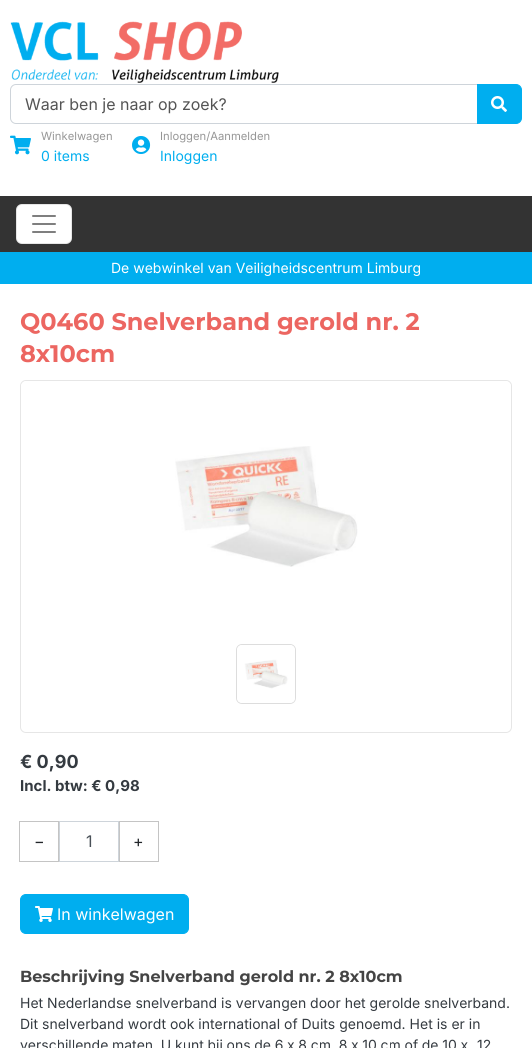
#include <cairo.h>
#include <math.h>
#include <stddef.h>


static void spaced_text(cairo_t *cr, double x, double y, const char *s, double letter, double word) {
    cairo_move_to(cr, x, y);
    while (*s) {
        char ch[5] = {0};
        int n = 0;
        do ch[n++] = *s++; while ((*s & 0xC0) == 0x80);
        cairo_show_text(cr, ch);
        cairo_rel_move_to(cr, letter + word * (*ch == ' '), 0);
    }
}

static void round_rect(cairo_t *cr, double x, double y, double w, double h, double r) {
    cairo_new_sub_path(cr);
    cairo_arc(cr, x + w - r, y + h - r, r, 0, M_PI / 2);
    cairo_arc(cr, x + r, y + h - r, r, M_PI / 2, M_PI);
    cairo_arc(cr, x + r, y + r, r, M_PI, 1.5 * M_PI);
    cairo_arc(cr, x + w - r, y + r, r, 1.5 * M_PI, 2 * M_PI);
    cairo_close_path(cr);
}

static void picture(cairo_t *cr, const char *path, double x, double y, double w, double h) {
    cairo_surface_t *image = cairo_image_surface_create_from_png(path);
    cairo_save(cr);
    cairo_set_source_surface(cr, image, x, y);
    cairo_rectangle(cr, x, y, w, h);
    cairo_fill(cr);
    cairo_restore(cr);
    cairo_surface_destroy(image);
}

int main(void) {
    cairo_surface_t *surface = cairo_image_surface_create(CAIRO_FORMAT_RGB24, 532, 1048);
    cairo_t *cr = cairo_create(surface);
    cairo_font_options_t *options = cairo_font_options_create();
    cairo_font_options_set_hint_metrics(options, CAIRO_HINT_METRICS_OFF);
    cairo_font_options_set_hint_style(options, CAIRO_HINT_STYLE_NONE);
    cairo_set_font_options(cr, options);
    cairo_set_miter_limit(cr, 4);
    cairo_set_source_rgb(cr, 1, 1, 1);
    cairo_paint(cr);
    picture(cr, "img1.png", 10, 21, 269, 62);
    cairo_new_path(cr);
    cairo_move_to(cr, 16, 84.5);
    cairo_line_to(cr, 477.5, 84.5);
    cairo_line_to(cr, 477.5, 123.5);
    cairo_line_to(cr, 16, 123.5);
    cairo_curve_to(cr, 13, 123.5, 10.5, 121, 10.5, 118);
    cairo_line_to(cr, 10.5, 90);
    cairo_curve_to(cr, 10.5, 87, 13, 84.5, 16, 84.5);
    cairo_close_path(cr);
    cairo_set_source_rgb(cr, 0.808, 0.831, 0.855);
    cairo_set_line_width(cr, 1);
    cairo_stroke(cr);
    cairo_select_font_face(cr, "Inter", CAIRO_FONT_SLANT_NORMAL, CAIRO_FONT_WEIGHT_NORMAL);
    cairo_set_font_size(cr, 16);
    cairo_set_source_rgb(cr, 0.329, 0.329, 0.329);
    cairo_move_to(cr, 25, 110);
    cairo_show_text(cr, "Waar ben je naar op zoek?");
    cairo_set_source_rgb(cr, 0, 0.682, 0.937);
    cairo_new_path(cr);
    cairo_move_to(cr, 477.5, 84.5);
    cairo_line_to(cr, 516, 84.5);
    cairo_curve_to(cr, 519, 84.5, 521.5, 87, 521.5, 90);
    cairo_line_to(cr, 521.5, 118);
    cairo_curve_to(cr, 521.5, 121, 519, 123.5, 516, 123.5);
    cairo_line_to(cr, 477.5, 123.5);
    cairo_close_path(cr);
    cairo_fill_preserve(cr);
    cairo_stroke(cr);
    picture(cr, "img2.png", 491, 96, 16, 16);
    picture(cr, "img3.png", 10, 135, 21, 20);
    cairo_set_font_size(cr, 11.25);
    cairo_set_source_rgb(cr, 0.588, 0.588, 0.588);
    cairo_move_to(cr, 41, 140);
    cairo_show_text(cr, "Winkelwagen");
    cairo_set_font_size(cr, 14);
    cairo_set_source_rgb(cr, 0, 0.682, 0.937);
    cairo_move_to(cr, 41, 161);
    cairo_show_text(cr, "0 items");
    picture(cr, "img4.png", 132, 136, 19, 18);
    cairo_set_font_size(cr, 11.25);
    cairo_set_source_rgb(cr, 0.588, 0.588, 0.588);
    cairo_move_to(cr, 160, 140);
    cairo_show_text(cr, "Inloggen/Aanmelden");
    cairo_set_font_size(cr, 14);
    cairo_set_source_rgb(cr, 0, 0.682, 0.937);
    cairo_move_to(cr, 160, 161);
    cairo_show_text(cr, "Inloggen");
    cairo_set_source_rgb(cr, 0.2, 0.2, 0.2);
    cairo_rectangle(cr, 0, 196, 532, 56);
    cairo_fill(cr);
    cairo_set_source_rgb(cr, 1, 1, 1);
    round_rect(cr, 16, 204, 56, 40, 6);
    cairo_fill(cr);
    round_rect(cr, 16.5, 204.5, 55, 39, 5.5);
    cairo_set_source_rgba(cr, 0, 0, 0, 0.1);
    cairo_stroke(cr);
    picture(cr, "img5.png", 32, 215, 24, 18);
    cairo_set_source_rgb(cr, 0, 0.682, 0.937);
    cairo_rectangle(cr, 0, 252, 532, 32);
    cairo_fill(cr);
    cairo_set_source_rgb(cr, 1, 1, 1);
    cairo_move_to(cr, 111, 273);
    cairo_show_text(cr, "De webwinkel van Veiligheidscentrum Limburg");
    cairo_select_font_face(cr, "Montserrat", CAIRO_FONT_SLANT_NORMAL, CAIRO_FONT_WEIGHT_BOLD);
    cairo_set_font_size(cr, 24);
    cairo_set_source_rgb(cr, 0.925, 0.4, 0.38);
    cairo_move_to(cr, 20, 330);
    cairo_show_text(cr, "Q0460 Snelverband gerold nr. 2");
    cairo_move_to(cr, 20, 362);
    cairo_show_text(cr, "8x10cm");
    round_rect(cr, 20.5, 380.5, 491, 352, 5.5);
    cairo_set_source_rgb(cr, 0.902, 0.902, 0.902);
    cairo_stroke(cr);
    cairo_set_source_rgb(cr, 1, 1, 1);
    round_rect(cr, 21, 381, 490, 250, 6);
    cairo_fill(cr);
    picture(cr, "img6.png", 175, 446, 183, 121);
    round_rect(cr, 236.5, 644.5, 59, 59, 5.5);
    cairo_set_source_rgb(cr, 0.867, 0.867, 0.867);
    cairo_stroke(cr);
    picture(cr, "img7.png", 237, 645, 58, 58);
    cairo_select_font_face(cr, "Inter", CAIRO_FONT_SLANT_NORMAL, CAIRO_FONT_WEIGHT_BOLD);
    cairo_set_font_size(cr, 18);
    cairo_set_source_rgb(cr, 0.204, 0.227, 0.251);
    cairo_move_to(cr, 20, 768);
    cairo_show_text(cr, "€ 0,90");
    cairo_set_font_size(cr, 15);
    cairo_move_to(cr, 20, 791);
    cairo_show_text(cr, "Incl. btw: € 0,98");
    cairo_rectangle(cr, 19.5, 821.5, 39, 40);
    cairo_set_source_rgb(cr, 0.769, 0.769, 0.769);
    cairo_stroke(cr);
    cairo_select_font_face(cr, "Inter", CAIRO_FONT_SLANT_NORMAL, CAIRO_FONT_WEIGHT_NORMAL);
    cairo_set_font_size(cr, 16);
    cairo_set_source_rgb(cr, 0.129, 0.145, 0.161);
    cairo_move_to(cr, 34, 847);
    cairo_show_text(cr, "−");
    cairo_rectangle(cr, 59.5, 821.5, 59, 40);
    cairo_set_source_rgb(cr, 0.808, 0.831, 0.855);
    cairo_stroke(cr);
    cairo_set_source_rgb(cr, 0.286, 0.314, 0.341);
    cairo_move_to(cr, 86, 847);
    cairo_show_text(cr, "1");
    cairo_rectangle(cr, 119.5, 821.5, 39, 40);
    cairo_set_source_rgb(cr, 0.769, 0.769, 0.769);
    cairo_stroke(cr);
    cairo_set_source_rgb(cr, 0.129, 0.145, 0.161);
    cairo_move_to(cr, 133, 847);
    cairo_show_text(cr, "+");
    cairo_set_source_rgb(cr, 0, 0.682, 0.937);
    round_rect(cr, 20.5, 894.5, 168, 39, 5.5);
    cairo_fill_preserve(cr);
    cairo_stroke(cr);
    picture(cr, "img8.png", 35, 906, 18, 16);
    cairo_set_source_rgb(cr, 1, 1, 1);
    cairo_move_to(cr, 57, 920);
    cairo_show_text(cr, "In winkelwagen");
    cairo_select_font_face(cr, "Montserrat", CAIRO_FONT_SLANT_NORMAL, CAIRO_FONT_WEIGHT_BOLD);
    cairo_set_source_rgb(cr, 0.267, 0.267, 0.267);
    cairo_move_to(cr, 20, 982);
    cairo_show_text(cr, "Beschrijving Snelverband gerold nr. 2 8x10cm");
    cairo_select_font_face(cr, "Inter", CAIRO_FONT_SLANT_NORMAL, CAIRO_FONT_WEIGHT_NORMAL);
    cairo_set_font_size(cr, 14);
    cairo_set_source_rgb(cr, 0.204, 0.227, 0.251);
    cairo_move_to(cr, 20, 1008);
    cairo_show_text(cr, "Het Nederlandse snelverband is vervangen door het gerolde snelverband.");
    cairo_move_to(cr, 20, 1029);
    cairo_show_text(cr, "Dit snelverband wordt ook international of Duits genoemd. Het is er in");
    spaced_text(cr, 20, 1050, "verschillende maten. U kunt bij ons de 6 x 8 cm, 8 x 10 cm of de 10 x", 0, -0.25);
    spaced_text(cr, 477, 1050, "12", 0, -0.25);
    cairo_surface_write_to_png(surface, "page.png");
    cairo_font_options_destroy(options);
    cairo_destroy(cr);
    cairo_surface_destroy(surface);
    return 0;
}
